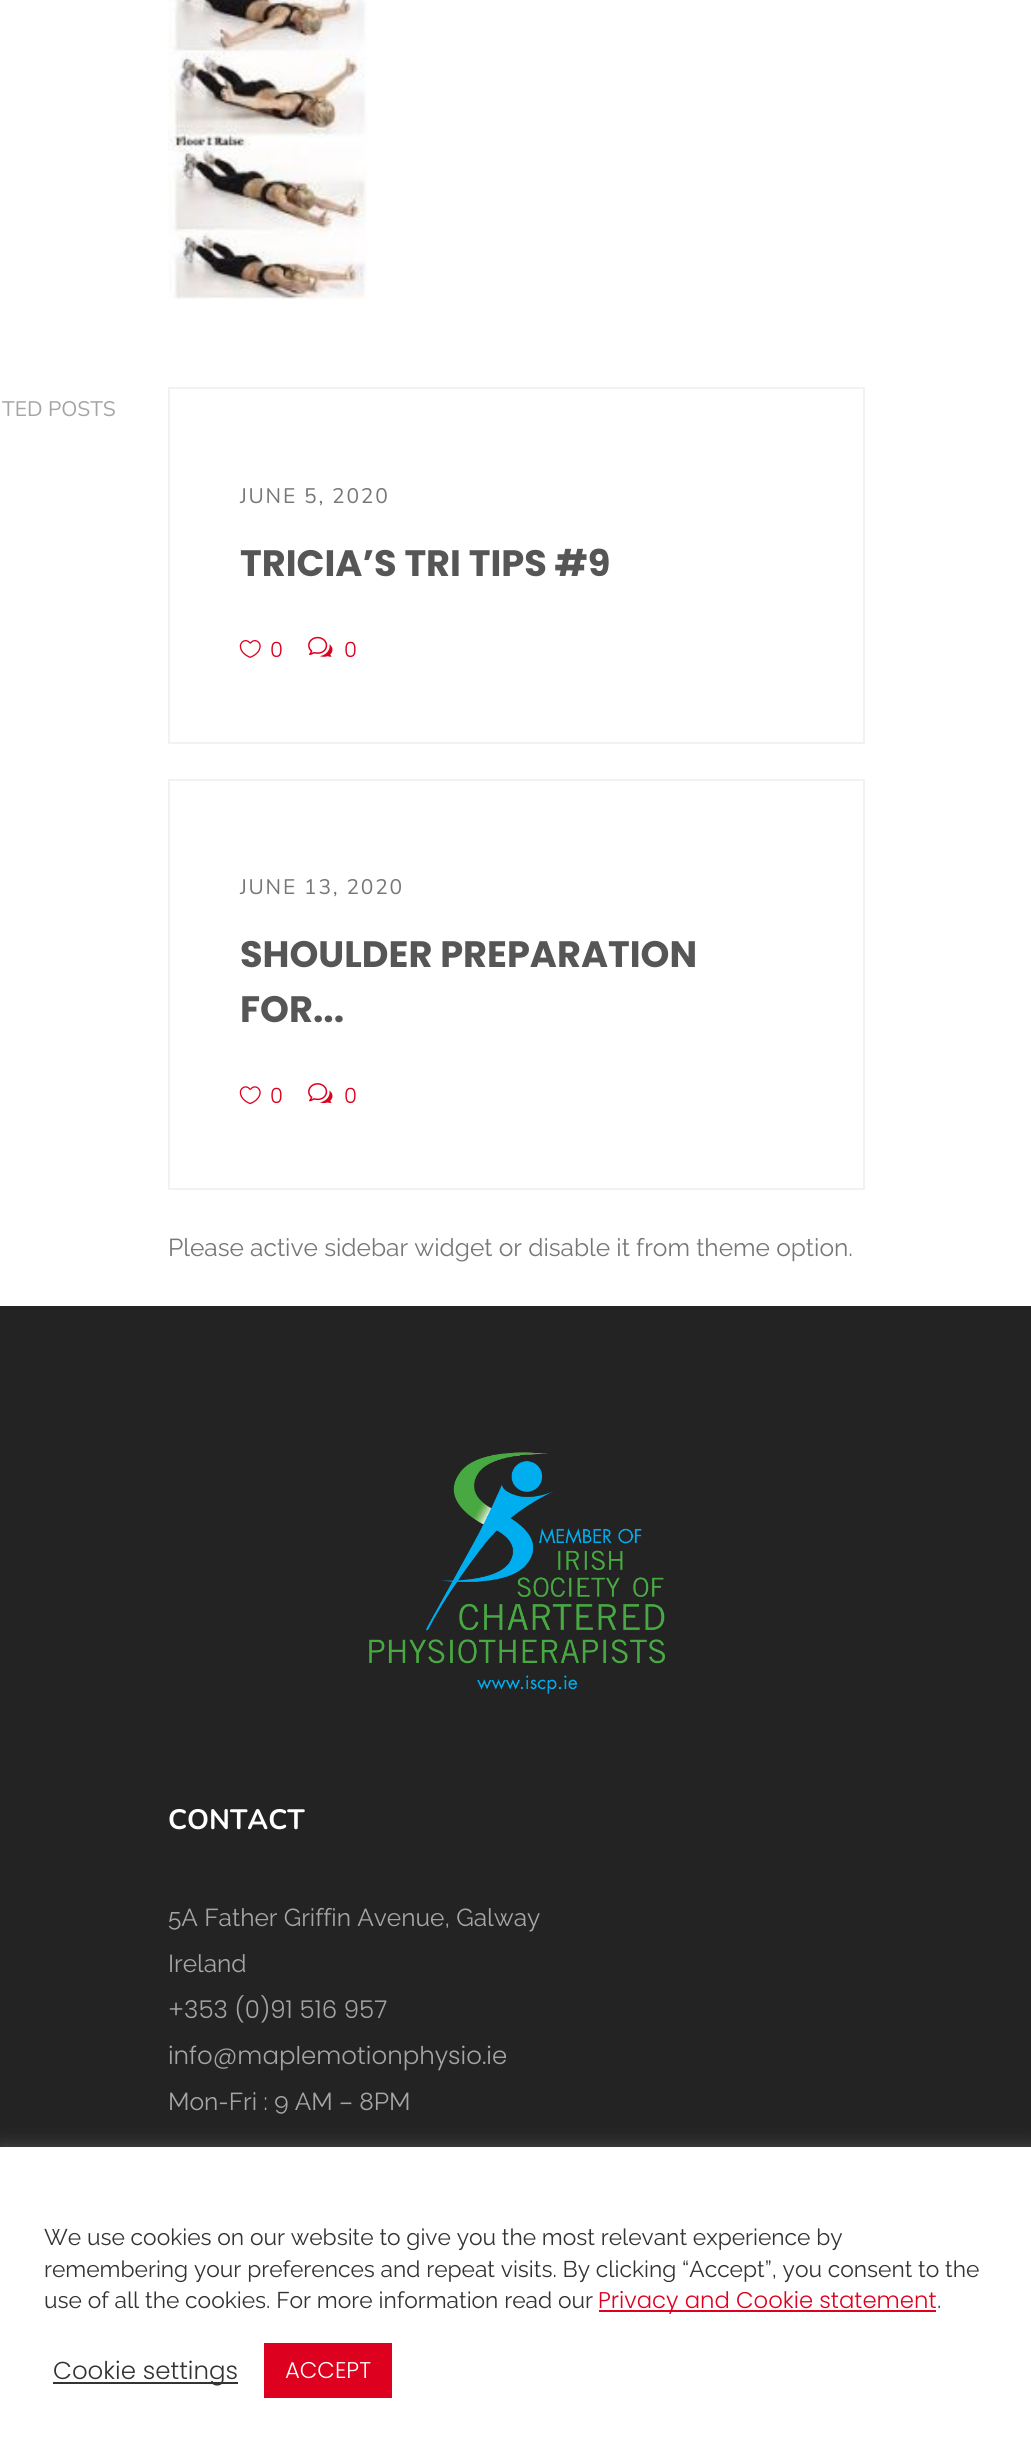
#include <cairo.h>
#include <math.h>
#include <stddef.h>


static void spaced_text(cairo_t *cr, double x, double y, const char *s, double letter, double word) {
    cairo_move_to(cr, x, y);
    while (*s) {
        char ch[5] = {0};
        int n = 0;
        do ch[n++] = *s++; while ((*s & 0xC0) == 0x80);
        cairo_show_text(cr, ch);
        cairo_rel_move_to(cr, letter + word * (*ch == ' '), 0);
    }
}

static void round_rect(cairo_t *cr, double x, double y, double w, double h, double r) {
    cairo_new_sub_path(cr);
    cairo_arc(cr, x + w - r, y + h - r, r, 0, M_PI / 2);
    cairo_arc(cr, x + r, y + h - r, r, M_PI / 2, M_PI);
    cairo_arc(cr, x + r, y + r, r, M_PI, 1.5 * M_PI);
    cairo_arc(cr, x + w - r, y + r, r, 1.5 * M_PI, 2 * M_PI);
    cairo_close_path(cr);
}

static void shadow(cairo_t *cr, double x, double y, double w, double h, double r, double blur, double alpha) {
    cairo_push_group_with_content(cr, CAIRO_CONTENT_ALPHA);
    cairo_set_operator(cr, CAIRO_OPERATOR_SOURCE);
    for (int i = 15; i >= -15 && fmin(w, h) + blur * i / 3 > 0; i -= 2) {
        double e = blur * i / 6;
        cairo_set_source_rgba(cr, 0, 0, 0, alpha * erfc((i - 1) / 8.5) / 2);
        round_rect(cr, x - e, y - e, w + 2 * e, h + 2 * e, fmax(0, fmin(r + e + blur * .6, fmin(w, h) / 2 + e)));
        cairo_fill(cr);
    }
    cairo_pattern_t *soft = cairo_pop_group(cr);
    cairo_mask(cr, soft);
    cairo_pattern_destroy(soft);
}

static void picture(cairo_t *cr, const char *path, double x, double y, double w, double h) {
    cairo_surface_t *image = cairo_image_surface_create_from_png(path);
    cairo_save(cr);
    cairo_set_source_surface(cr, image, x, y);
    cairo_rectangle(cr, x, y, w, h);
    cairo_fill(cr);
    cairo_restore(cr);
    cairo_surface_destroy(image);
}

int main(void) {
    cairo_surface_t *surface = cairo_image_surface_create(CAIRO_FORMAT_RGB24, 1031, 2450);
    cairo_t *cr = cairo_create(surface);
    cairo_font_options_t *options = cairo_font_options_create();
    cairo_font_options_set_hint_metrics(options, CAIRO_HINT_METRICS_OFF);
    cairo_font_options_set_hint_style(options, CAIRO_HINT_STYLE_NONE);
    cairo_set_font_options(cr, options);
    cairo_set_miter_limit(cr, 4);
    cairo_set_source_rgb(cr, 1, 1, 1);
    cairo_paint(cr);
    picture(cr, "img1.png", 168, 0, 199, 299);
    cairo_select_font_face(cr, "Nunito", CAIRO_FONT_SLANT_NORMAL, CAIRO_FONT_WEIGHT_NORMAL);
    cairo_set_font_size(cr, 21);
    cairo_set_source_rgb(cr, 0.647, 0.647, 0.647);
    cairo_move_to(cr, 2, 416);
    cairo_show_text(cr, "TED POSTS");
    cairo_rectangle(cr, 169, 388, 695, 355);
    cairo_set_source_rgb(cr, 0.949, 0.949, 0.949);
    cairo_stroke(cr);
    cairo_set_source_rgb(cr, 0.467, 0.467, 0.467);
    spaced_text(cr, 240, 503, "JUNE 5, 2020", 1.75, 0);
    cairo_select_font_face(cr, "Poppins", CAIRO_FONT_SLANT_NORMAL, CAIRO_FONT_WEIGHT_BOLD);
    cairo_set_font_size(cr, 36.75);
    cairo_set_source_rgb(cr, 0.337, 0.337, 0.337);
    cairo_move_to(cr, 240, 576);
    cairo_show_text(cr, "TRICIA’S TRI TIPS #9");
    picture(cr, "img2.png", 239, 640, 22, 18);
    cairo_select_font_face(cr, "Poppins Light", CAIRO_FONT_SLANT_NORMAL, CAIRO_FONT_WEIGHT_NORMAL);
    cairo_set_font_size(cr, 21);
    cairo_set_source_rgb(cr, 0.871, 0, 0.122);
    cairo_move_to(cr, 270, 657);
    cairo_show_text(cr, "0");
    picture(cr, "img3.png", 308, 636, 25, 21);
    cairo_move_to(cr, 344, 657);
    cairo_show_text(cr, "0");
    cairo_rectangle(cr, 169, 780, 695, 409);
    cairo_set_source_rgb(cr, 0.949, 0.949, 0.949);
    cairo_stroke(cr);
    cairo_select_font_face(cr, "Nunito", CAIRO_FONT_SLANT_NORMAL, CAIRO_FONT_WEIGHT_NORMAL);
    cairo_set_source_rgb(cr, 0.467, 0.467, 0.467);
    spaced_text(cr, 240, 894, "JUNE 13, 2020", 1.75, 0);
    cairo_select_font_face(cr, "Poppins", CAIRO_FONT_SLANT_NORMAL, CAIRO_FONT_WEIGHT_BOLD);
    cairo_set_font_size(cr, 36.75);
    cairo_set_source_rgb(cr, 0.337, 0.337, 0.337);
    cairo_move_to(cr, 240, 967);
    cairo_show_text(cr, "SHOULDER PREPARATION");
    cairo_move_to(cr, 240, 1022);
    cairo_show_text(cr, "FOR...");
    picture(cr, "img4.png", 239, 1086, 22, 19);
    cairo_select_font_face(cr, "Poppins Light", CAIRO_FONT_SLANT_NORMAL, CAIRO_FONT_WEIGHT_NORMAL);
    cairo_set_font_size(cr, 21);
    cairo_set_source_rgb(cr, 0.871, 0, 0.122);
    cairo_move_to(cr, 270, 1103);
    cairo_show_text(cr, "0");
    picture(cr, "img5.png", 308, 1083, 25, 21);
    cairo_move_to(cr, 344, 1103);
    cairo_show_text(cr, "0");
    cairo_select_font_face(cr, "Raleway", CAIRO_FONT_SLANT_NORMAL, CAIRO_FONT_WEIGHT_NORMAL);
    cairo_set_font_size(cr, 24.5);
    cairo_set_source_rgb(cr, 0.467, 0.467, 0.467);
    cairo_move_to(cr, 168, 1256);
    cairo_show_text(cr, "Please active sidebar widget or disable it from theme option.");
    cairo_set_source_rgb(cr, 0.137, 0.137, 0.137);
    cairo_rectangle(cr, 0, 1306, 1031, 841);
    cairo_fill(cr);
    picture(cr, "img6.png", 369, 1452, 296, 242);
    cairo_select_font_face(cr, "Nunito", CAIRO_FONT_SLANT_NORMAL, CAIRO_FONT_WEIGHT_BOLD);
    cairo_set_font_size(cr, 28);
    cairo_set_source_rgb(cr, 1, 1, 1);
    cairo_move_to(cr, 168, 1829);
    cairo_show_text(cr, "CONTACT");
    cairo_select_font_face(cr, "Raleway", CAIRO_FONT_SLANT_NORMAL, CAIRO_FONT_WEIGHT_NORMAL);
    cairo_set_font_size(cr, 24.5);
    cairo_set_source_rgb(cr, 0.647, 0.647, 0.647);
    cairo_move_to(cr, 168, 1926);
    cairo_show_text(cr, "5A Father Griffin Avenue, Galway");
    cairo_move_to(cr, 168, 1972);
    cairo_show_text(cr, "Ireland");
    cairo_select_font_face(cr, "Poppins Light", CAIRO_FONT_SLANT_NORMAL, CAIRO_FONT_WEIGHT_NORMAL);
    cairo_move_to(cr, 168, 2018);
    cairo_show_text(cr, "+353 (0)91 516 957");
    cairo_move_to(cr, 168, 2064);
    cairo_show_text(cr, "info@maplemotionphysio.ie");
    cairo_select_font_face(cr, "Raleway", CAIRO_FONT_SLANT_NORMAL, CAIRO_FONT_WEIGHT_NORMAL);
    cairo_move_to(cr, 168, 2110);
    cairo_show_text(cr, "Mon-Fri : 9 AM – 8PM");
    cairo_set_source_rgb(cr, 0.675, 0.671, 0.671);
    shadow(cr, 0, 2146, 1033, 302, 0, 9, 0.3);
    cairo_set_source_rgb(cr, 1, 1, 1);
    cairo_rectangle(cr, 0, 2147, 1031, 303);
    cairo_fill(cr);
    cairo_set_font_size(cr, 22.75);
    cairo_set_source_rgb(cr, 0.2, 0.2, 0.2);
    cairo_move_to(cr, 44, 2245);
    cairo_show_text(cr, "We use cookies on our website to give you the most relevant experience by");
    cairo_move_to(cr, 44, 2277);
    cairo_show_text(cr, "remembering your preferences and repeat visits. By clicking “Accept”, you consent to the");
    cairo_move_to(cr, 44, 2308);
    cairo_show_text(cr, "use of all the cookies. For more information read our");
    cairo_set_source_rgb(cr, 0.871, 0, 0.122);
    cairo_rectangle(cr, 599, 2310, 337, 2);
    cairo_fill(cr);
    cairo_select_font_face(cr, "Poppins Light", CAIRO_FONT_SLANT_NORMAL, CAIRO_FONT_WEIGHT_NORMAL);
    cairo_move_to(cr, 598, 2308);
    cairo_show_text(cr, "Privacy and Cookie statement");
    cairo_select_font_face(cr, "Raleway", CAIRO_FONT_SLANT_NORMAL, CAIRO_FONT_WEIGHT_NORMAL);
    cairo_set_source_rgb(cr, 0.2, 0.2, 0.2);
    cairo_move_to(cr, 937, 2308);
    cairo_show_text(cr, ".");
    cairo_rectangle(cr, 53, 2382, 185, 2);
    cairo_fill(cr);
    cairo_select_font_face(cr, "Poppins Light", CAIRO_FONT_SLANT_NORMAL, CAIRO_FONT_WEIGHT_NORMAL);
    cairo_set_font_size(cr, 24.5);
    cairo_move_to(cr, 53, 2379);
    cairo_show_text(cr, "Cookie settings");
    cairo_set_source_rgb(cr, 0.871, 0, 0.122);
    cairo_rectangle(cr, 264, 2343, 128, 55);
    cairo_fill(cr);
    cairo_set_font_size(cr, 22.75);
    cairo_set_source_rgb(cr, 1, 1, 1);
    cairo_move_to(cr, 285, 2378);
    cairo_show_text(cr, "ACCEPT");
    cairo_surface_write_to_png(surface, "page.png");
    cairo_font_options_destroy(options);
    cairo_destroy(cr);
    cairo_surface_destroy(surface);
    return 0;
}
